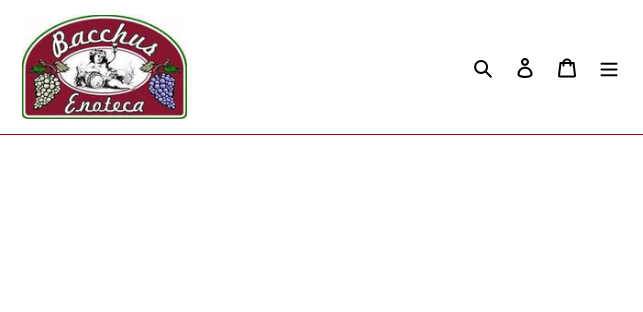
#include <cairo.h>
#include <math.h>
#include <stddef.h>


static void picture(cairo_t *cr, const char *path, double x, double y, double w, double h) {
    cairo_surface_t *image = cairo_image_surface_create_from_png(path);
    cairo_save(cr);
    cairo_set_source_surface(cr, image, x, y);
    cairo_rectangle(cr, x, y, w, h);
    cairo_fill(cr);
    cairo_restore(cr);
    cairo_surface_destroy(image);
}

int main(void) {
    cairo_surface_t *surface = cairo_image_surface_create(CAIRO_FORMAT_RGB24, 643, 312);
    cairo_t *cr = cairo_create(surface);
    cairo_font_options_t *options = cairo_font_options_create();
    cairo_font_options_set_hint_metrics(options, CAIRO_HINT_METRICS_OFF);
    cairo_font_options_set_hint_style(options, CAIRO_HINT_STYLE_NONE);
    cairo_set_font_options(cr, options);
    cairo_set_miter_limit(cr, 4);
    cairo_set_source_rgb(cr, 1, 1, 1);
    cairo_paint(cr);
    cairo_set_source_rgb(cr, 0.561, 0.02, 0.02);
    cairo_rectangle(cr, 0, 134, 643, 1);
    cairo_fill(cr);
    picture(cr, "img1.png", 22, 15, 165, 104);
    picture(cr, "img2.png", 474, 60, 18, 18);
    picture(cr, "img3.png", 517, 58, 16, 20);
    picture(cr, "img4.png", 558, 58, 18, 20);
    picture(cr, "img5.png", 600, 62, 18, 15);
    cairo_surface_write_to_png(surface, "page.png");
    cairo_font_options_destroy(options);
    cairo_destroy(cr);
    cairo_surface_destroy(surface);
    return 0;
}
